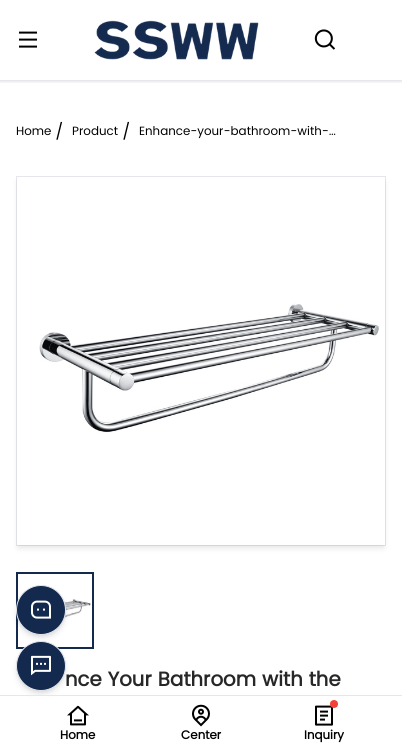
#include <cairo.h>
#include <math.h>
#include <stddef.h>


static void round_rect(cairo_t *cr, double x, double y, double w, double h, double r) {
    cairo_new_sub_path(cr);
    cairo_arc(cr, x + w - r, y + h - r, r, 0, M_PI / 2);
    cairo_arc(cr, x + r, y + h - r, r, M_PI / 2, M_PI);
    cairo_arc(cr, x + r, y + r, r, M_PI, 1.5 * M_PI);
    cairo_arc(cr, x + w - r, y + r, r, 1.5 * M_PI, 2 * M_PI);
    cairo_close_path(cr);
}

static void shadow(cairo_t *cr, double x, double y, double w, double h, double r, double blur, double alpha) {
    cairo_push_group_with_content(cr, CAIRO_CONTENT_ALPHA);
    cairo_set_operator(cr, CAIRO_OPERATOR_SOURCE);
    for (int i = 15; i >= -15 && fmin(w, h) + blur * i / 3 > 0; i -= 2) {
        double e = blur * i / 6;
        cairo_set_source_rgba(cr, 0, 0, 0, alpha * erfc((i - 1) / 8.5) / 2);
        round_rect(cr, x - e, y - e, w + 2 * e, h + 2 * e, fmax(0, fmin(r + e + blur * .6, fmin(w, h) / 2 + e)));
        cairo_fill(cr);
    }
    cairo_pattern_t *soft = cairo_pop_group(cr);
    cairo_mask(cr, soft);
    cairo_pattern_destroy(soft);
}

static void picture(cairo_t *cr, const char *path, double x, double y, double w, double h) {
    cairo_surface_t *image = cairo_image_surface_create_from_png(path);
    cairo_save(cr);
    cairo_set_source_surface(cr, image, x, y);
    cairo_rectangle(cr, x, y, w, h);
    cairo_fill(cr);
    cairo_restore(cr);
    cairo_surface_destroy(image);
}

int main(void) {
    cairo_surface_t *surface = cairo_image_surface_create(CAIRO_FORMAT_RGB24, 402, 755);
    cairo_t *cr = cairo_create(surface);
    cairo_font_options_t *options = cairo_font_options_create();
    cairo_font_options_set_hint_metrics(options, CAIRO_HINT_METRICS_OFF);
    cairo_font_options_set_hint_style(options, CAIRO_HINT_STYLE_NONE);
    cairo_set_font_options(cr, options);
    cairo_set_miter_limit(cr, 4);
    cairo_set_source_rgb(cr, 1, 1, 1);
    cairo_paint(cr);
    cairo_save(cr);
    cairo_rectangle(cr, 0, 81, 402, 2);
    cairo_clip(cr);
    cairo_set_source_rgb(cr, 0, 0, 0);
    shadow(cr, 0, 1, 402, 81, 0, 1.5, 0.1);
    cairo_restore(cr);
    picture(cr, "img1.png", 19, 31, 18, 17);
    picture(cr, "img2.png", 94, 20, 165, 40);
    picture(cr, "img3.png", 314, 29, 22, 21);
    cairo_set_source_rgb(cr, 0.898, 0.906, 0.922);
    cairo_rectangle(cr, 0, 80, 402, 1);
    cairo_fill(cr);
    cairo_select_font_face(cr, "Poppins", CAIRO_FONT_SLANT_NORMAL, CAIRO_FONT_WEIGHT_NORMAL);
    cairo_set_font_size(cr, 12);
    cairo_set_source_rgb(cr, 0, 0, 0);
    cairo_move_to(cr, 16, 135);
    cairo_show_text(cr, "Home");
    cairo_set_font_size(cr, 16);
    cairo_move_to(cr, 55, 137);
    cairo_show_text(cr, "/");
    cairo_set_font_size(cr, 12);
    cairo_move_to(cr, 72, 135);
    cairo_show_text(cr, "Product");
    cairo_set_font_size(cr, 16);
    cairo_move_to(cr, 122, 137);
    cairo_show_text(cr, "/");
    cairo_set_font_size(cr, 12);
    cairo_move_to(cr, 139, 135);
    cairo_show_text(cr, "Enhance-your-bathroom-with-…");
    cairo_rectangle(cr, 16.5, 176.5, 369, 369);
    cairo_set_source_rgb(cr, 0.898, 0.906, 0.922);
    cairo_set_line_width(cr, 1);
    cairo_stroke(cr);
    cairo_save(cr);
    cairo_set_fill_rule(cr, CAIRO_FILL_RULE_EVEN_ODD);
    cairo_new_path(cr);
    cairo_move_to(cr, 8, 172);
    cairo_line_to(cr, 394, 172);
    cairo_line_to(cr, 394, 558);
    cairo_line_to(cr, 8, 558);
    cairo_close_path(cr);
    cairo_move_to(cr, 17, 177);
    cairo_line_to(cr, 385, 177);
    cairo_line_to(cr, 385, 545);
    cairo_line_to(cr, 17, 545);
    cairo_close_path(cr);
    cairo_clip(cr);
    cairo_set_source_rgb(cr, 0, 0, 0);
    shadow(cr, 18, 182, 366, 366, 0, 3, 0.1);
    cairo_restore(cr);
    picture(cr, "img4.png", 39, 303, 340, 130);
    cairo_rectangle(cr, 17, 573, 76, 75);
    cairo_set_source_rgb(cr, 0.078, 0.165, 0.306);
    cairo_set_line_width(cr, 2);
    cairo_stroke(cr);
    picture(cr, "img5.png", 60, 599, 31, 27);
    cairo_select_font_face(cr, "Poppins", CAIRO_FONT_SLANT_NORMAL, CAIRO_FONT_WEIGHT_BOLD);
    cairo_set_font_size(cr, 20);
    cairo_set_source_rgb(cr, 0.153, 0.153, 0.165);
    cairo_move_to(cr, 65, 686);
    cairo_show_text(cr, "nce Your Bathroom with the");
    cairo_set_source_rgb(cr, 0, 0, 0);
    shadow(cr, 18, 645, 46, 46, 23, 2, 0.1);
    shadow(cr, 17, 646, 48, 48, 24, 3, 0.1);
    cairo_set_source_rgb(cr, 0.078, 0.165, 0.306);
    cairo_arc(cr, 41, 666, 24.5, 0, 2 * M_PI);
    cairo_fill_preserve(cr);
    cairo_set_source_rgb(cr, 0.898, 0.906, 0.922);
    cairo_set_line_width(cr, 1);
    cairo_stroke(cr);
    cairo_set_source_rgb(cr, 0, 0, 0);
    shadow(cr, 18, 589, 46, 46, 23, 2, 0.1);
    shadow(cr, 17, 590, 48, 48, 24, 3, 0.1);
    cairo_set_source_rgb(cr, 0.078, 0.165, 0.306);
    cairo_arc(cr, 41, 610, 24.5, 0, 2 * M_PI);
    cairo_fill_preserve(cr);
    cairo_set_source_rgb(cr, 0.898, 0.906, 0.922);
    cairo_stroke(cr);
    picture(cr, "img6.png", 31, 600, 20, 19);
    picture(cr, "img7.png", 31, 655, 20, 21);
    cairo_set_source_rgb(cr, 1, 1, 1);
    cairo_rectangle(cr, 33, 696, 16, 2);
    cairo_fill(cr);
    cairo_set_source_rgb(cr, 0.898, 0.906, 0.922);
    cairo_rectangle(cr, 0, 695, 402, 1);
    cairo_fill(cr);
    picture(cr, "img8.png", 67, 705, 22, 21);
    cairo_set_font_size(cr, 12);
    cairo_set_source_rgb(cr, 0, 0, 0);
    cairo_move_to(cr, 60, 739);
    cairo_show_text(cr, "Home");
    picture(cr, "img9.png", 192, 704, 18, 23);
    cairo_move_to(cr, 181, 739);
    cairo_show_text(cr, "Center");
    picture(cr, "img10.png", 315, 705, 18, 21);
    cairo_set_source_rgb(cr, 0.957, 0.263, 0.212);
    cairo_arc(cr, 334, 704, 4, 0, 2 * M_PI);
    cairo_fill(cr);
    cairo_set_source_rgb(cr, 0, 0, 0);
    cairo_move_to(cr, 304, 739);
    cairo_show_text(cr, "Inquiry");
    cairo_surface_write_to_png(surface, "page.png");
    cairo_font_options_destroy(options);
    cairo_destroy(cr);
    cairo_surface_destroy(surface);
    return 0;
}
